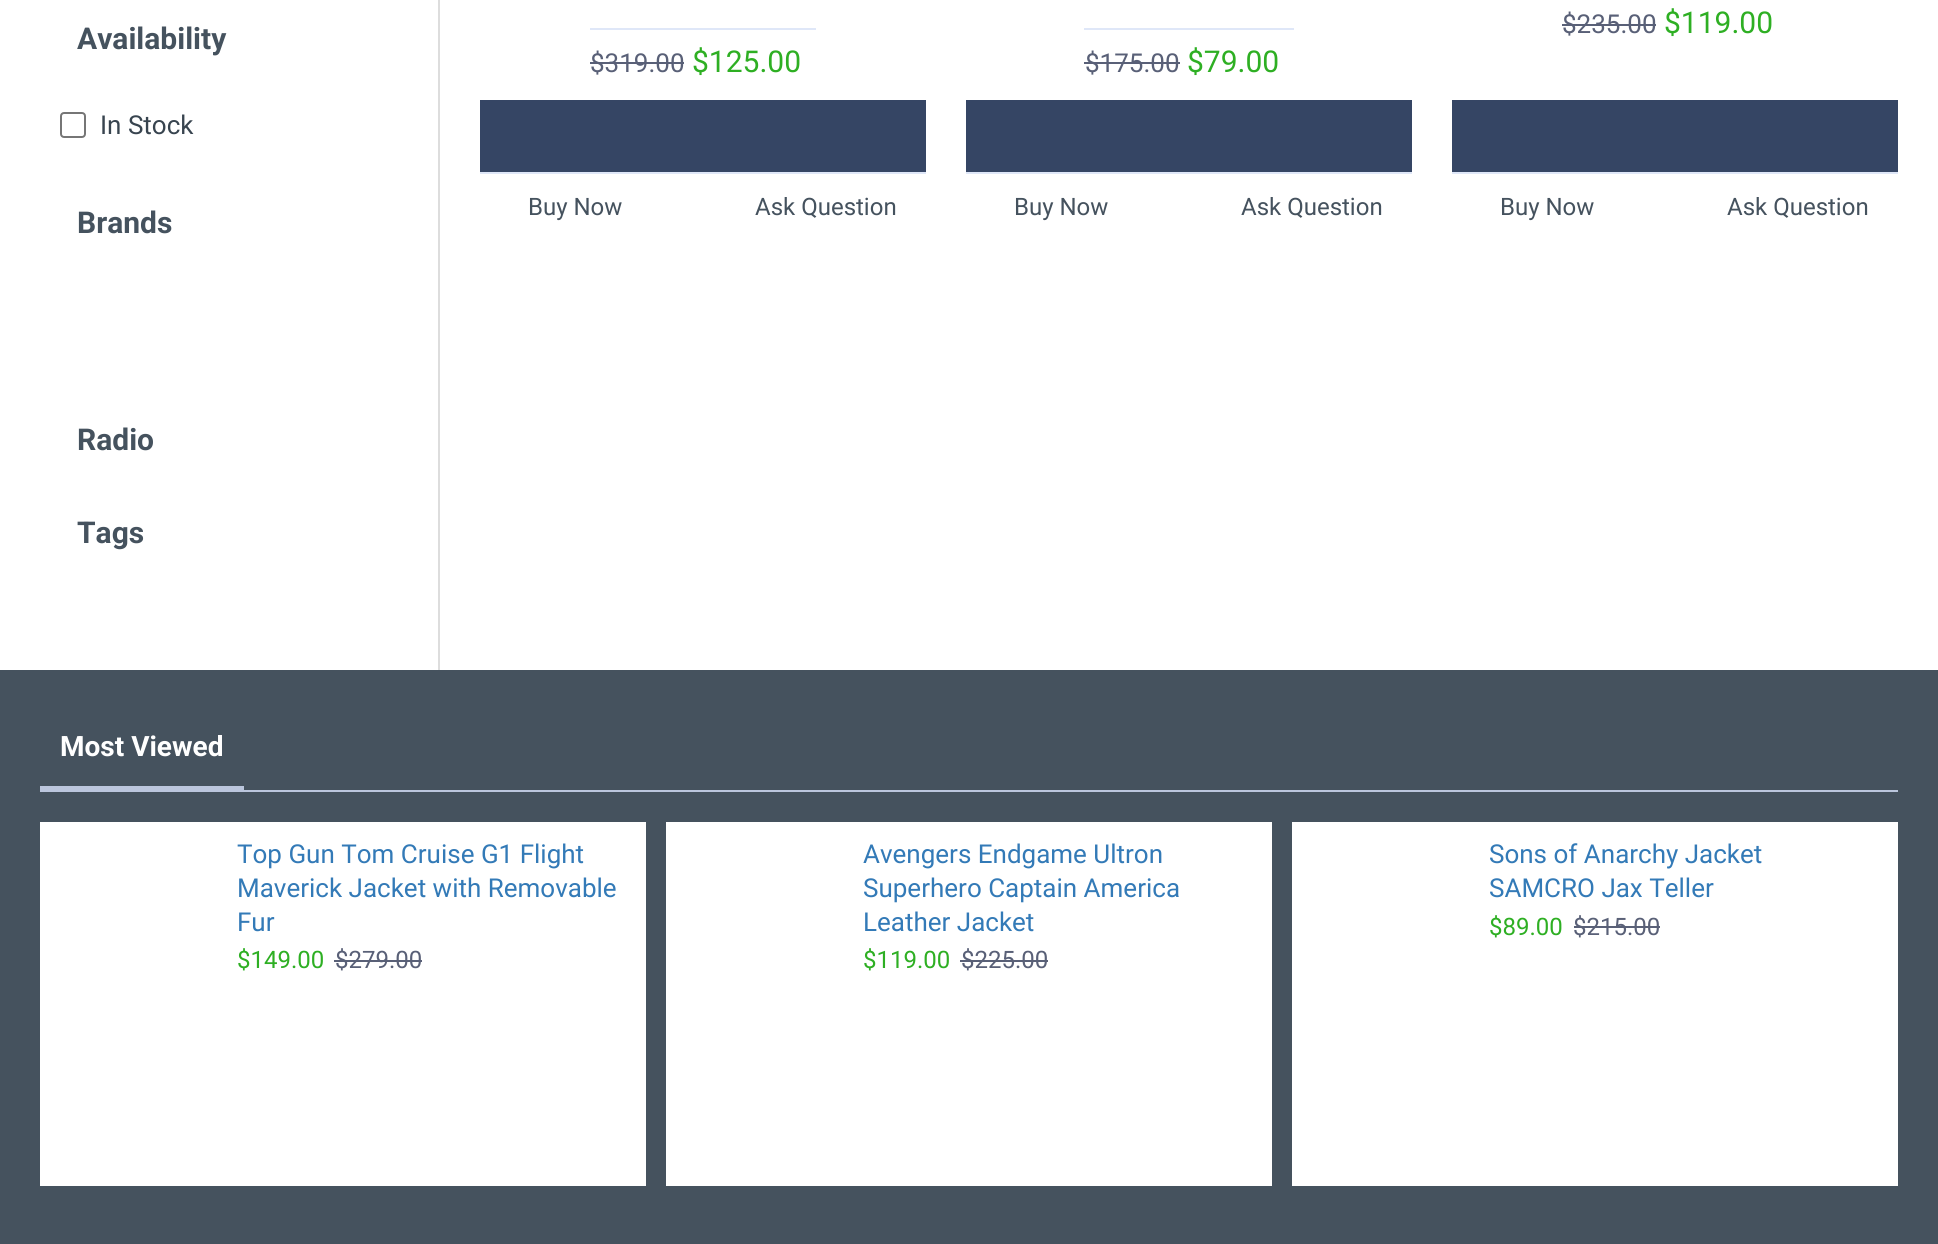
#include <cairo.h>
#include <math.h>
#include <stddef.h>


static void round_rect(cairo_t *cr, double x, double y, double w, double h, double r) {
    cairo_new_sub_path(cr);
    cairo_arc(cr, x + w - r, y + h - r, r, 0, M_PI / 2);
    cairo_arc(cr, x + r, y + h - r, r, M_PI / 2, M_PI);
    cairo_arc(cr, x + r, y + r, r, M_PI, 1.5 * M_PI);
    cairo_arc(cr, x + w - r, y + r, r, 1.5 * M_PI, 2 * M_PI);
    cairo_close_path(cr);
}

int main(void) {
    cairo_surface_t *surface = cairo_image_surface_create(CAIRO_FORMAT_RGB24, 1938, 1244);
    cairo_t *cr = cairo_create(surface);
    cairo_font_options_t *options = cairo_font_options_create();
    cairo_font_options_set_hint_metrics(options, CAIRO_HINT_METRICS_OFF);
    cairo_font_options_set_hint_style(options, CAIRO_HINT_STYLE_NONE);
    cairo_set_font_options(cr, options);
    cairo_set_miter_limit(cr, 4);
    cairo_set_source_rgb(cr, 1, 1, 1);
    cairo_paint(cr);
    cairo_set_source_rgb(cr, 0.867, 0.867, 0.867);
    cairo_rectangle(cr, 438, 0, 2, 670);
    cairo_fill(cr);
    cairo_select_font_face(cr, "Roboto", CAIRO_FONT_SLANT_NORMAL, CAIRO_FONT_WEIGHT_BOLD);
    cairo_set_font_size(cr, 30);
    cairo_set_source_rgb(cr, 0.271, 0.322, 0.369);
    cairo_move_to(cr, 77, 49);
    cairo_show_text(cr, "Availability");
    round_rect(cr, 61, 113, 24, 24, 3);
    cairo_set_source_rgb(cr, 0.463, 0.463, 0.463);
    cairo_stroke(cr);
    cairo_select_font_face(cr, "Roboto", CAIRO_FONT_SLANT_NORMAL, CAIRO_FONT_WEIGHT_NORMAL);
    cairo_set_font_size(cr, 26);
    cairo_set_source_rgb(cr, 0.22, 0.267, 0.31);
    cairo_move_to(cr, 100, 134);
    cairo_show_text(cr, "In Stock");
    cairo_select_font_face(cr, "Roboto", CAIRO_FONT_SLANT_NORMAL, CAIRO_FONT_WEIGHT_BOLD);
    cairo_set_font_size(cr, 30);
    cairo_set_source_rgb(cr, 0.271, 0.322, 0.369);
    cairo_move_to(cr, 77, 233);
    cairo_show_text(cr, "Brands");
    cairo_move_to(cr, 77, 450);
    cairo_show_text(cr, "Radio");
    cairo_move_to(cr, 77, 543);
    cairo_show_text(cr, "Tags");
    cairo_set_source_rgb(cr, 0.875, 0.906, 0.969);
    cairo_rectangle(cr, 590, 28, 226, 2);
    cairo_fill(cr);
    cairo_select_font_face(cr, "Roboto", CAIRO_FONT_SLANT_NORMAL, CAIRO_FONT_WEIGHT_NORMAL);
    cairo_set_font_size(cr, 26);
    cairo_set_source_rgb(cr, 0.349, 0.376, 0.467);
    cairo_move_to(cr, 590, 72);
    cairo_show_text(cr, "$319.00");
    cairo_rectangle(cr, 590, 62, 94, 2);
    cairo_fill(cr);
    cairo_set_font_size(cr, 30);
    cairo_set_source_rgb(cr, 0.18, 0.686, 0.137);
    cairo_move_to(cr, 692, 72);
    cairo_show_text(cr, "$125.00");
    cairo_set_source_rgb(cr, 0.208, 0.271, 0.392);
    cairo_rectangle(cr, 480, 100, 446, 72);
    cairo_fill(cr);
    cairo_set_source_rgb(cr, 0.875, 0.906, 0.969);
    cairo_rectangle(cr, 480, 172, 446, 2);
    cairo_fill(cr);
    cairo_set_font_size(cr, 24);
    cairo_set_source_rgb(cr, 0.271, 0.322, 0.369);
    cairo_move_to(cr, 528, 215);
    cairo_show_text(cr, "Buy Now");
    cairo_move_to(cr, 755, 215);
    cairo_show_text(cr, "Ask Question");
    cairo_set_source_rgb(cr, 0.875, 0.906, 0.969);
    cairo_rectangle(cr, 1084, 28, 210, 2);
    cairo_fill(cr);
    cairo_set_font_size(cr, 26);
    cairo_set_source_rgb(cr, 0.349, 0.376, 0.467);
    cairo_move_to(cr, 1085, 72);
    cairo_show_text(cr, "$175.00");
    cairo_rectangle(cr, 1084, 62, 96, 2);
    cairo_fill(cr);
    cairo_set_font_size(cr, 30);
    cairo_set_source_rgb(cr, 0.18, 0.686, 0.137);
    cairo_move_to(cr, 1187, 72);
    cairo_show_text(cr, "$79.00");
    cairo_set_source_rgb(cr, 0.208, 0.271, 0.392);
    cairo_rectangle(cr, 966, 100, 446, 72);
    cairo_fill(cr);
    cairo_set_source_rgb(cr, 0.875, 0.906, 0.969);
    cairo_rectangle(cr, 966, 172, 446, 2);
    cairo_fill(cr);
    cairo_set_font_size(cr, 24);
    cairo_set_source_rgb(cr, 0.271, 0.322, 0.369);
    cairo_move_to(cr, 1014, 215);
    cairo_show_text(cr, "Buy Now");
    cairo_move_to(cr, 1241, 215);
    cairo_show_text(cr, "Ask Question");
    cairo_set_font_size(cr, 26);
    cairo_set_source_rgb(cr, 0.349, 0.376, 0.467);
    cairo_move_to(cr, 1562, 33);
    cairo_show_text(cr, "$235.00");
    cairo_rectangle(cr, 1562, 24, 94, 2);
    cairo_fill(cr);
    cairo_set_font_size(cr, 30);
    cairo_set_source_rgb(cr, 0.18, 0.686, 0.137);
    cairo_move_to(cr, 1664, 33);
    cairo_show_text(cr, "$119.00");
    cairo_set_source_rgb(cr, 0.208, 0.271, 0.392);
    cairo_rectangle(cr, 1452, 100, 446, 72);
    cairo_fill(cr);
    cairo_set_source_rgb(cr, 0.875, 0.906, 0.969);
    cairo_rectangle(cr, 1452, 172, 446, 2);
    cairo_fill(cr);
    cairo_set_font_size(cr, 24);
    cairo_set_source_rgb(cr, 0.271, 0.322, 0.369);
    cairo_move_to(cr, 1500, 215);
    cairo_show_text(cr, "Buy Now");
    cairo_move_to(cr, 1727, 215);
    cairo_show_text(cr, "Ask Question");
    cairo_rectangle(cr, 0, 670, 1938, 574);
    cairo_fill(cr);
    cairo_set_source_rgb(cr, 0.733, 0.776, 0.867);
    cairo_rectangle(cr, 40, 790, 1858, 2);
    cairo_fill(cr);
    cairo_rectangle(cr, 40, 786, 204, 4);
    cairo_fill(cr);
    cairo_select_font_face(cr, "Roboto", CAIRO_FONT_SLANT_NORMAL, CAIRO_FONT_WEIGHT_BOLD);
    cairo_set_font_size(cr, 28);
    cairo_set_source_rgb(cr, 1, 1, 1);
    cairo_move_to(cr, 60, 756);
    cairo_show_text(cr, "Most Viewed");
    cairo_rectangle(cr, 40, 822, 606, 364);
    cairo_fill(cr);
    cairo_select_font_face(cr, "Roboto", CAIRO_FONT_SLANT_NORMAL, CAIRO_FONT_WEIGHT_NORMAL);
    cairo_set_font_size(cr, 26);
    cairo_set_source_rgb(cr, 0.2, 0.478, 0.718);
    cairo_move_to(cr, 237, 863);
    cairo_show_text(cr, "Top Gun Tom Cruise G1 Flight");
    cairo_move_to(cr, 237, 897);
    cairo_show_text(cr, "Maverick Jacket with Removable");
    cairo_move_to(cr, 237, 931);
    cairo_show_text(cr, "Fur");
    cairo_set_font_size(cr, 24);
    cairo_set_source_rgb(cr, 0.18, 0.686, 0.137);
    cairo_move_to(cr, 237, 968);
    cairo_show_text(cr, "$149.00");
    cairo_set_source_rgb(cr, 0.349, 0.376, 0.467);
    cairo_move_to(cr, 335, 968);
    cairo_show_text(cr, "$279.00");
    cairo_rectangle(cr, 334, 960, 88, 2);
    cairo_fill(cr);
    cairo_set_source_rgb(cr, 1, 1, 1);
    cairo_rectangle(cr, 666, 822, 606, 364);
    cairo_fill(cr);
    cairo_set_font_size(cr, 26);
    cairo_set_source_rgb(cr, 0.2, 0.478, 0.718);
    cairo_move_to(cr, 863, 863);
    cairo_show_text(cr, "Avengers Endgame Ultron");
    cairo_move_to(cr, 863, 897);
    cairo_show_text(cr, "Superhero Captain America");
    cairo_move_to(cr, 863, 931);
    cairo_show_text(cr, "Leather Jacket");
    cairo_set_font_size(cr, 24);
    cairo_set_source_rgb(cr, 0.18, 0.686, 0.137);
    cairo_move_to(cr, 863, 968);
    cairo_show_text(cr, "$119.00");
    cairo_set_source_rgb(cr, 0.349, 0.376, 0.467);
    cairo_move_to(cr, 961, 968);
    cairo_show_text(cr, "$225.00");
    cairo_rectangle(cr, 960, 960, 88, 2);
    cairo_fill(cr);
    cairo_set_source_rgb(cr, 1, 1, 1);
    cairo_rectangle(cr, 1292, 822, 606, 364);
    cairo_fill(cr);
    cairo_set_font_size(cr, 26);
    cairo_set_source_rgb(cr, 0.2, 0.478, 0.718);
    cairo_move_to(cr, 1489, 863);
    cairo_show_text(cr, "Sons of Anarchy Jacket");
    cairo_move_to(cr, 1489, 897);
    cairo_show_text(cr, "SAMCRO Jax Teller");
    cairo_set_font_size(cr, 24);
    cairo_set_source_rgb(cr, 0.18, 0.686, 0.137);
    cairo_move_to(cr, 1489, 935);
    cairo_show_text(cr, "$89.00");
    cairo_set_source_rgb(cr, 0.349, 0.376, 0.467);
    cairo_move_to(cr, 1573, 935);
    cairo_show_text(cr, "$215.00");
    cairo_rectangle(cr, 1574, 926, 86, 2);
    cairo_fill(cr);
    cairo_surface_write_to_png(surface, "page.png");
    cairo_font_options_destroy(options);
    cairo_destroy(cr);
    cairo_surface_destroy(surface);
    return 0;
}
